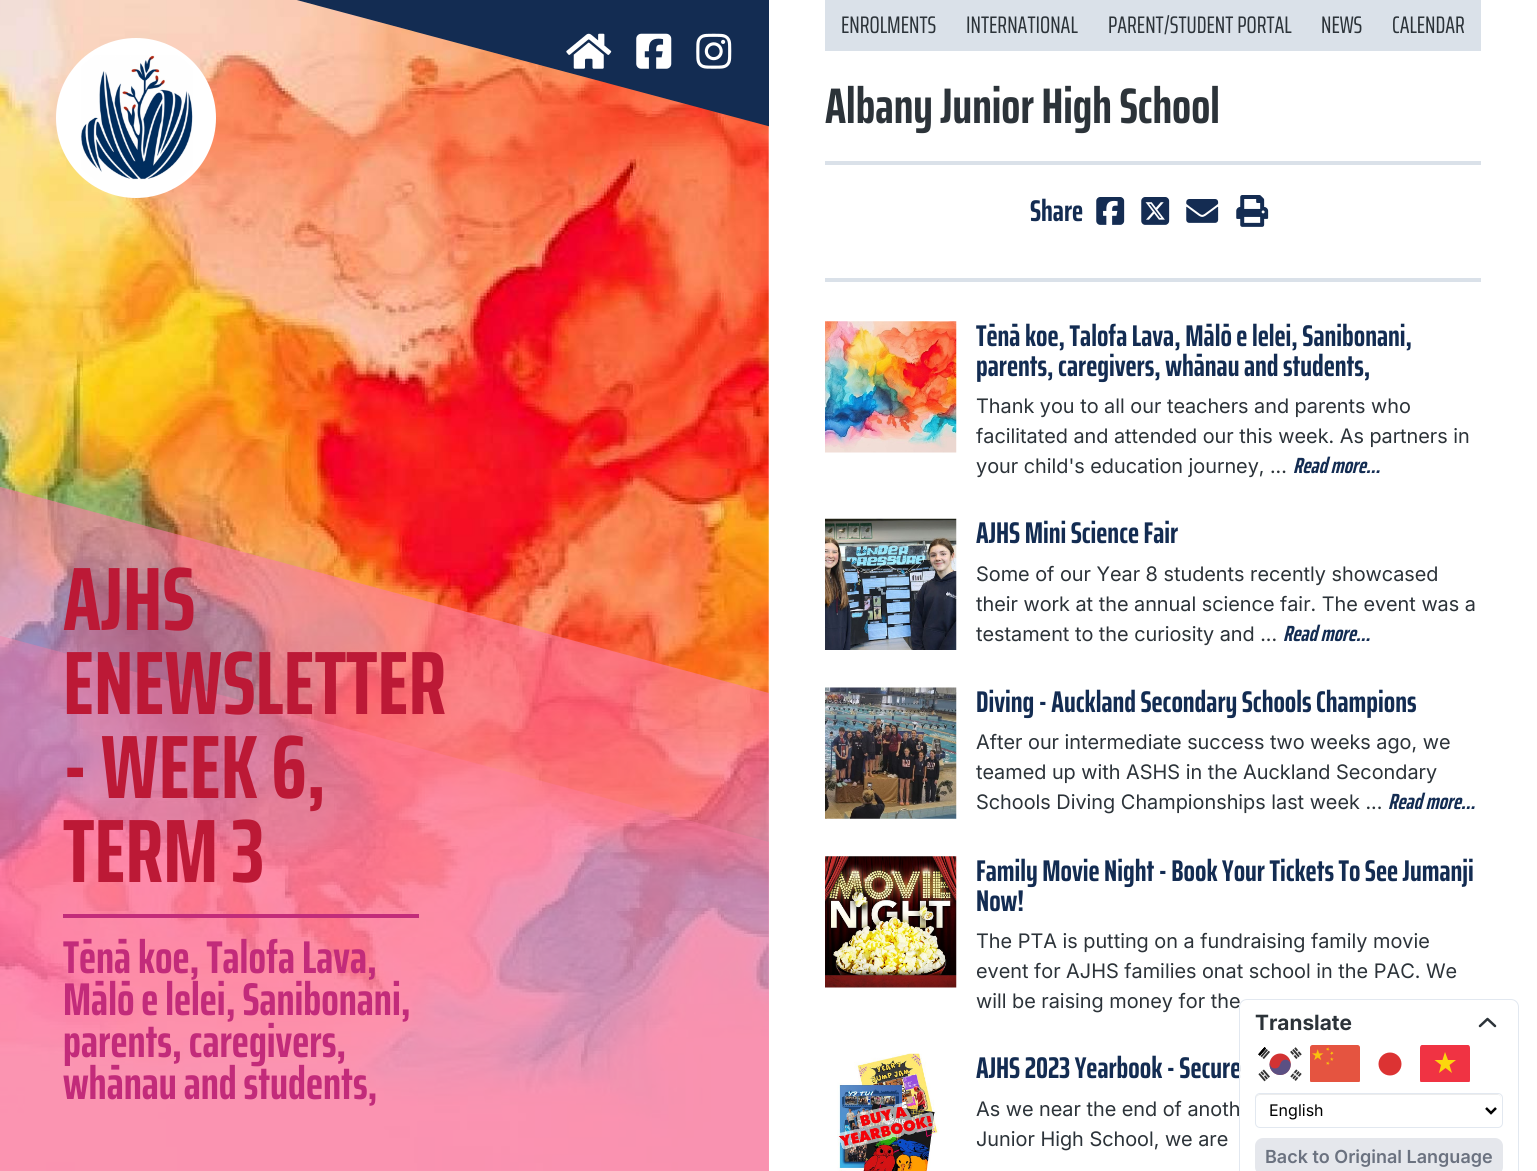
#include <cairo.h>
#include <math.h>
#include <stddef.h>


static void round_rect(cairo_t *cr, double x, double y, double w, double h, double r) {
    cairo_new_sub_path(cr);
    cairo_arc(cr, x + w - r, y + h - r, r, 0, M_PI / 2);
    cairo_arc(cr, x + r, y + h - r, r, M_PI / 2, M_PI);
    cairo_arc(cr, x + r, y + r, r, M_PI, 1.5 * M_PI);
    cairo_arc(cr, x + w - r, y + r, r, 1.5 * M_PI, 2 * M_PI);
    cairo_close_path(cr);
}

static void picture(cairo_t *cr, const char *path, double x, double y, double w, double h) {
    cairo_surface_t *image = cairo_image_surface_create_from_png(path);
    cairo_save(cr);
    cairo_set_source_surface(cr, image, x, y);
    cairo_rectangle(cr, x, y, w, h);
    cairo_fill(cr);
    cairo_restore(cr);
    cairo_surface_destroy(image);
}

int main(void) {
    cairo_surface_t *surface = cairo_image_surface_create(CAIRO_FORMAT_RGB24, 1537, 1171);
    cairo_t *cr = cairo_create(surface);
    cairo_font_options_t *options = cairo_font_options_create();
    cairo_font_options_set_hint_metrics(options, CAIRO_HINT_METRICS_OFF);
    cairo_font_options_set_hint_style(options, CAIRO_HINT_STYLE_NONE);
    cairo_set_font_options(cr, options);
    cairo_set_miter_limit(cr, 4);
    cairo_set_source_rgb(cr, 1, 1, 1);
    cairo_paint(cr);
    picture(cr, "img1.png", 0, 0, 769, 1171);
    cairo_save(cr);
    cairo_rectangle(cr, 0, 0, 769, 1171);
    cairo_clip(cr);
    cairo_set_source_rgb(cr, 0.078, 0.173, 0.322);
    cairo_new_path(cr);
    cairo_move_to(cr, -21, -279);
    cairo_line_to(cr, 944, -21);
    cairo_line_to(cr, 895, 160);
    cairo_line_to(cr, -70, -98);
    cairo_close_path(cr);
    cairo_fill(cr);
    cairo_restore(cr);
    picture(cr, "img2.png", 566, 33, 46, 36);
    picture(cr, "img3.png", 636, 33, 36, 36);
    picture(cr, "img4.png", 696, 33, 36, 36);
    cairo_set_source_rgb(cr, 1, 1, 1);
    cairo_arc(cr, 136, 118, 80, 0, 2 * M_PI);
    cairo_fill(cr);
    picture(cr, "img5.png", 81, 55, 112, 125);
    cairo_save(cr);
    cairo_rectangle(cr, 0, 0, 769, 1171);
    cairo_clip(cr);
    cairo_set_source_rgba(cr, 0.992, 0.486, 0.647, 0.6);
    cairo_new_path(cr);
    cairo_move_to(cr, -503, 352);
    cairo_line_to(cr, 1168, 800);
    cairo_line_to(cr, 974, 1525);
    cairo_line_to(cr, -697, 1077);
    cairo_close_path(cr);
    cairo_fill(cr);
    cairo_set_source_rgba(cr, 0.992, 0.486, 0.647, 0.39);
    cairo_new_path(cr);
    cairo_move_to(cr, -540, 491);
    cairo_line_to(cr, 1131, 939);
    cairo_line_to(cr, 969, 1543);
    cairo_line_to(cr, -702, 1095);
    cairo_close_path(cr);
    cairo_fill(cr);
    cairo_restore(cr);
    cairo_select_font_face(cr, "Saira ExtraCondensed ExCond", CAIRO_FONT_SLANT_NORMAL, CAIRO_FONT_WEIGHT_BOLD);
    cairo_set_font_size(cr, 90);
    cairo_set_source_rgb(cr, 0.737, 0.098, 0.212);
    cairo_move_to(cr, 63, 630);
    cairo_show_text(cr, "AJHS");
    cairo_move_to(cr, 63, 714);
    cairo_show_text(cr, "ENEWSLETTER");
    cairo_move_to(cr, 63, 798);
    cairo_show_text(cr, "- WEEK 6,");
    cairo_move_to(cr, 63, 882);
    cairo_show_text(cr, "TERM 3");
    cairo_set_source_rgb(cr, 0.761, 0.169, 0.478);
    cairo_rectangle(cr, 63, 914, 356, 4);
    cairo_fill(cr);
    cairo_set_font_size(cr, 46);
    cairo_move_to(cr, 63, 973);
    cairo_show_text(cr, "Tēnā koe, Talofa Lava,");
    cairo_move_to(cr, 63, 1015);
    cairo_show_text(cr, "Mālō e lelei, Sanibonani,");
    cairo_move_to(cr, 63, 1057);
    cairo_show_text(cr, "parents, caregivers,");
    cairo_move_to(cr, 63, 1099);
    cairo_show_text(cr, "whānau and students,");
    cairo_set_source_rgb(cr, 0.855, 0.882, 0.914);
    cairo_rectangle(cr, 825, 0, 656, 51);
    cairo_fill(cr);
    cairo_select_font_face(cr, "Saira ExtraCondensed", CAIRO_FONT_SLANT_NORMAL, CAIRO_FONT_WEIGHT_NORMAL);
    cairo_set_font_size(cr, 24);
    cairo_set_source_rgb(cr, 0.173, 0.2, 0.224);
    cairo_move_to(cr, 841, 33);
    cairo_show_text(cr, "ENROLMENTS");
    cairo_move_to(cr, 966, 33);
    cairo_show_text(cr, "INTERNATIONAL");
    cairo_move_to(cr, 1108, 33);
    cairo_show_text(cr, "PARENT/STUDENT PORTAL");
    cairo_move_to(cr, 1321, 33);
    cairo_show_text(cr, "NEWS");
    cairo_move_to(cr, 1392, 33);
    cairo_show_text(cr, "CALENDAR");
    cairo_select_font_face(cr, "Saira ExtraCondensed ExCond", CAIRO_FONT_SLANT_NORMAL, CAIRO_FONT_WEIGHT_BOLD);
    cairo_set_font_size(cr, 50);
    cairo_move_to(cr, 825, 123);
    cairo_show_text(cr, "Albany Junior High School");
    cairo_set_source_rgb(cr, 0.855, 0.882, 0.914);
    cairo_rectangle(cr, 825, 161, 656, 4);
    cairo_fill(cr);
    cairo_set_font_size(cr, 30);
    cairo_set_source_rgb(cr, 0.078, 0.173, 0.322);
    cairo_move_to(cr, 1030, 221);
    cairo_show_text(cr, "Share");
    picture(cr, "img6.png", 1096, 197, 29, 28);
    picture(cr, "img7.png", 1141, 197, 29, 28);
    picture(cr, "img8.png", 1186, 199, 33, 24);
    picture(cr, "img9.png", 1236, 195, 33, 32);
    cairo_set_source_rgb(cr, 0.855, 0.882, 0.914);
    cairo_rectangle(cr, 825, 278, 656, 4);
    cairo_fill(cr);
    picture(cr, "img10.png", 825, 321, 132, 132);
    cairo_set_source_rgb(cr, 0.078, 0.173, 0.322);
    cairo_move_to(cr, 976, 346);
    cairo_show_text(cr, "Tēnā koe, Talofa Lava, Mālō e lelei, Sanibonani,");
    cairo_move_to(cr, 976, 376);
    cairo_show_text(cr, "parents, caregivers, whānau and students,");
    cairo_select_font_face(cr, "Inter", CAIRO_FONT_SLANT_NORMAL, CAIRO_FONT_WEIGHT_NORMAL);
    cairo_set_font_size(cr, 20);
    cairo_set_source_rgb(cr, 0.173, 0.2, 0.224);
    cairo_move_to(cr, 976, 413);
    cairo_show_text(cr, "Thank you to all our teachers and parents who");
    cairo_move_to(cr, 976, 443);
    cairo_show_text(cr, "facilitated and attended our this week. As partners in");
    cairo_move_to(cr, 976, 473);
    cairo_show_text(cr, "your child's education journey, ...");
    cairo_select_font_face(cr, "Saira ExtraCondensed ExCond", CAIRO_FONT_SLANT_ITALIC, CAIRO_FONT_WEIGHT_BOLD);
    cairo_set_font_size(cr, 22);
    cairo_set_source_rgb(cr, 0.078, 0.173, 0.322);
    cairo_move_to(cr, 1293, 473);
    cairo_show_text(cr, "Read more…");
    picture(cr, "img11.png", 825, 518, 132, 132);
    cairo_select_font_face(cr, "Saira ExtraCondensed ExCond", CAIRO_FONT_SLANT_NORMAL, CAIRO_FONT_WEIGHT_BOLD);
    cairo_set_font_size(cr, 30);
    cairo_move_to(cr, 976, 543);
    cairo_show_text(cr, "AJHS Mini Science Fair");
    cairo_select_font_face(cr, "Inter", CAIRO_FONT_SLANT_NORMAL, CAIRO_FONT_WEIGHT_NORMAL);
    cairo_set_font_size(cr, 20);
    cairo_set_source_rgb(cr, 0.173, 0.2, 0.224);
    cairo_move_to(cr, 976, 581);
    cairo_show_text(cr, "Some of our Year 8 students recently showcased");
    cairo_move_to(cr, 976, 611);
    cairo_show_text(cr, "their work at the annual science fair. The event was a");
    cairo_move_to(cr, 976, 641);
    cairo_show_text(cr, "testament to the curiosity and ...");
    cairo_select_font_face(cr, "Saira ExtraCondensed ExCond", CAIRO_FONT_SLANT_ITALIC, CAIRO_FONT_WEIGHT_BOLD);
    cairo_set_font_size(cr, 22);
    cairo_set_source_rgb(cr, 0.078, 0.173, 0.322);
    cairo_move_to(cr, 1283, 641);
    cairo_show_text(cr, "Read more…");
    picture(cr, "img12.png", 825, 687, 132, 132);
    cairo_select_font_face(cr, "Saira ExtraCondensed ExCond", CAIRO_FONT_SLANT_NORMAL, CAIRO_FONT_WEIGHT_BOLD);
    cairo_set_font_size(cr, 30);
    cairo_move_to(cr, 976, 712);
    cairo_show_text(cr, "Diving - Auckland Secondary Schools Champions");
    cairo_select_font_face(cr, "Inter", CAIRO_FONT_SLANT_NORMAL, CAIRO_FONT_WEIGHT_NORMAL);
    cairo_set_font_size(cr, 20);
    cairo_set_source_rgb(cr, 0.173, 0.2, 0.224);
    cairo_move_to(cr, 976, 749);
    cairo_show_text(cr, "After our intermediate success two weeks ago, we");
    cairo_move_to(cr, 976, 779);
    cairo_show_text(cr, "teamed up with ASHS in the Auckland Secondary");
    cairo_move_to(cr, 976, 809);
    cairo_show_text(cr, "Schools Diving Championships last week ...");
    cairo_select_font_face(cr, "Saira ExtraCondensed ExCond", CAIRO_FONT_SLANT_ITALIC, CAIRO_FONT_WEIGHT_BOLD);
    cairo_set_font_size(cr, 22);
    cairo_set_source_rgb(cr, 0.078, 0.173, 0.322);
    cairo_move_to(cr, 1388, 809);
    cairo_show_text(cr, "Read more…");
    picture(cr, "img13.png", 825, 856, 132, 132);
    cairo_select_font_face(cr, "Saira ExtraCondensed ExCond", CAIRO_FONT_SLANT_NORMAL, CAIRO_FONT_WEIGHT_BOLD);
    cairo_set_font_size(cr, 30);
    cairo_move_to(cr, 976, 881);
    cairo_show_text(cr, "Family Movie Night - Book Your Tickets To See Jumanji");
    cairo_move_to(cr, 976, 911);
    cairo_show_text(cr, "Now!");
    cairo_select_font_face(cr, "Inter", CAIRO_FONT_SLANT_NORMAL, CAIRO_FONT_WEIGHT_NORMAL);
    cairo_set_font_size(cr, 20);
    cairo_set_source_rgb(cr, 0.173, 0.2, 0.224);
    cairo_move_to(cr, 976, 948);
    cairo_show_text(cr, "The PTA is putting on a fundraising family movie");
    cairo_move_to(cr, 976, 978);
    cairo_show_text(cr, "event for AJHS families onat school in the PAC. We");
    cairo_move_to(cr, 976, 1008);
    cairo_show_text(cr, "will be raising money for the");
    picture(cr, "img14.png", 837, 1053, 102, 118);
    cairo_select_font_face(cr, "Saira ExtraCondensed ExCond", CAIRO_FONT_SLANT_NORMAL, CAIRO_FONT_WEIGHT_BOLD);
    cairo_set_font_size(cr, 30);
    cairo_set_source_rgb(cr, 0.078, 0.173, 0.322);
    cairo_move_to(cr, 976, 1078);
    cairo_show_text(cr, "AJHS 2023 Yearbook - Secure");
    cairo_select_font_face(cr, "Inter", CAIRO_FONT_SLANT_NORMAL, CAIRO_FONT_WEIGHT_NORMAL);
    cairo_set_font_size(cr, 20);
    cairo_set_source_rgb(cr, 0.173, 0.2, 0.224);
    cairo_move_to(cr, 976, 1116);
    cairo_show_text(cr, "As we near the end of anoth");
    cairo_move_to(cr, 976, 1146);
    cairo_show_text(cr, "Junior High School, we are");
    cairo_set_source_rgba(cr, 1, 1, 1, 0.75);
    round_rect(cr, 1239.5, 999.5, 279, 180, 7.5);
    cairo_fill_preserve(cr);
    cairo_set_source_rgb(cr, 0.886, 0.91, 0.941);
    cairo_set_line_width(cr, 1);
    cairo_stroke(cr);
    cairo_select_font_face(cr, "Inter", CAIRO_FONT_SLANT_NORMAL, CAIRO_FONT_WEIGHT_BOLD);
    cairo_set_font_size(cr, 21);
    cairo_set_source_rgb(cr, 0.173, 0.2, 0.224);
    cairo_move_to(cr, 1255, 1030);
    cairo_show_text(cr, "Translate");
    cairo_new_path(cr);
    cairo_move_to(cr, 1480, 1026);
    cairo_line_to(cr, 1487.5, 1019);
    cairo_line_to(cr, 1495, 1026);
    cairo_set_line_width(cr, 2.5);
    cairo_set_line_cap(cr, CAIRO_LINE_CAP_ROUND);
    cairo_set_line_join(cr, CAIRO_LINE_JOIN_ROUND);
    cairo_stroke(cr);
    picture(cr, "img15.png", 1255, 1047, 50, 35);
    picture(cr, "img16.png", 1310, 1045, 50, 37);
    cairo_set_source_rgba(cr, 0.827, 0, 0, 0.8);
    cairo_arc(cr, 1390, 1064, 11.5, 0, 2 * M_PI);
    cairo_fill(cr);
    cairo_set_source_rgba(cr, 0.925, 0, 0.082, 0.8);
    cairo_new_path(cr);
    cairo_move_to(cr, 1422, 1045);
    cairo_line_to(cr, 1468, 1045);
    cairo_curve_to(cr, 1469, 1045, 1470, 1046, 1470, 1048);
    cairo_line_to(cr, 1470, 1080);
    cairo_curve_to(cr, 1470, 1081, 1470, 1082, 1469, 1082);
    cairo_line_to(cr, 1421, 1082);
    cairo_curve_to(cr, 1420, 1082, 1420, 1081, 1420, 1080);
    cairo_line_to(cr, 1420, 1048);
    cairo_curve_to(cr, 1420, 1046, 1421, 1045, 1422, 1045);
    cairo_close_path(cr);
    cairo_fill(cr);
    cairo_set_source_rgba(cr, 1, 1, 0, 0.8);
    cairo_set_fill_rule(cr, CAIRO_FILL_RULE_EVEN_ODD);
    cairo_new_path(cr);
    cairo_move_to(cr, 1452, 1073);
    cairo_line_to(cr, 1445.5, 1068);
    cairo_line_to(cr, 1439, 1073);
    cairo_line_to(cr, 1441, 1065);
    cairo_line_to(cr, 1434.5, 1060);
    cairo_line_to(cr, 1442.5, 1060);
    cairo_line_to(cr, 1445, 1052);
    cairo_line_to(cr, 1448, 1060);
    cairo_line_to(cr, 1456, 1060);
    cairo_line_to(cr, 1449.5, 1065);
    cairo_close_path(cr);
    cairo_fill(cr);
    cairo_set_source_rgb(cr, 0.925, 0.925, 0.925);
    cairo_set_fill_rule(cr, CAIRO_FILL_RULE_WINDING);
    cairo_new_path(cr);
    cairo_move_to(cr, 1260, 1095);
    cairo_line_to(cr, 1498, 1095);
    cairo_curve_to(cr, 1500, 1095, 1501, 1097, 1501, 1099);
    cairo_line_to(cr, 1501, 1098);
    cairo_curve_to(cr, 1501, 1096, 1499, 1094, 1497, 1094);
    cairo_line_to(cr, 1260, 1094);
    cairo_curve_to(cr, 1258, 1094, 1256, 1096, 1256, 1098);
    cairo_line_to(cr, 1256, 1099);
    cairo_curve_to(cr, 1256, 1097, 1258, 1095, 1260, 1095);
    cairo_close_path(cr);
    cairo_fill(cr);
    round_rect(cr, 1255.5, 1093.5, 247, 34, 4.5);
    cairo_set_source_rgb(cr, 0.886, 0.91, 0.941);
    cairo_set_line_width(cr, 1);
    cairo_set_line_cap(cr, CAIRO_LINE_CAP_BUTT);
    cairo_set_line_join(cr, CAIRO_LINE_JOIN_MITER);
    cairo_stroke(cr);
    cairo_new_path(cr);
    cairo_move_to(cr, 1486, 1108);
    cairo_line_to(cr, 1491, 1113);
    cairo_line_to(cr, 1496, 1108);
    cairo_set_source_rgb(cr, 0, 0, 0);
    cairo_set_line_width(cr, 2.5);
    cairo_stroke(cr);
    cairo_select_font_face(cr, "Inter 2", CAIRO_FONT_SLANT_NORMAL, CAIRO_FONT_WEIGHT_NORMAL);
    cairo_set_font_size(cr, 16);
    cairo_move_to(cr, 1269, 1116);
    cairo_show_text(cr, "English");
    cairo_set_source_rgb(cr, 0.898, 0.906, 0.922);
    round_rect(cr, 1255, 1138, 248, 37, 8);
    cairo_fill(cr);
    cairo_select_font_face(cr, "Inter SemiBold", CAIRO_FONT_SLANT_NORMAL, CAIRO_FONT_WEIGHT_NORMAL);
    cairo_set_font_size(cr, 18);
    cairo_set_source_rgb(cr, 0.42, 0.447, 0.502);
    cairo_move_to(cr, 1265, 1163);
    cairo_show_text(cr, "Back to Original Language");
    cairo_surface_write_to_png(surface, "page.png");
    cairo_font_options_destroy(options);
    cairo_destroy(cr);
    cairo_surface_destroy(surface);
    return 0;
}
